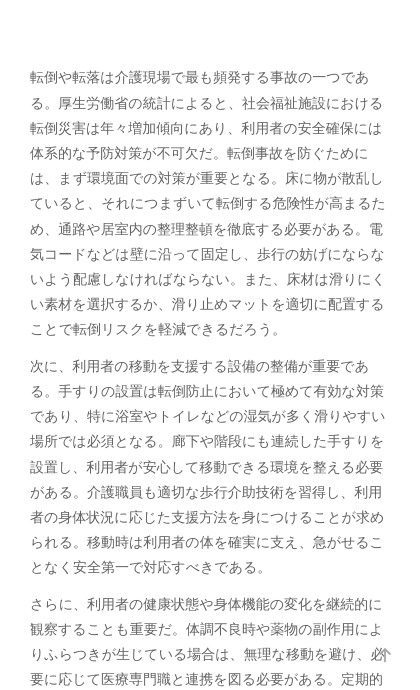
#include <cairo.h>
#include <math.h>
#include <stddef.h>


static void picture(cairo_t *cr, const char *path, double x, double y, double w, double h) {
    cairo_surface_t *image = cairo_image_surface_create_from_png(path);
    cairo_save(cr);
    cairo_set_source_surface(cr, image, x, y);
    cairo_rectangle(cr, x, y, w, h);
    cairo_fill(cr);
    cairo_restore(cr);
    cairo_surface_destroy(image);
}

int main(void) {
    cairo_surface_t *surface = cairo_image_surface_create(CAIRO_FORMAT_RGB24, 420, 690);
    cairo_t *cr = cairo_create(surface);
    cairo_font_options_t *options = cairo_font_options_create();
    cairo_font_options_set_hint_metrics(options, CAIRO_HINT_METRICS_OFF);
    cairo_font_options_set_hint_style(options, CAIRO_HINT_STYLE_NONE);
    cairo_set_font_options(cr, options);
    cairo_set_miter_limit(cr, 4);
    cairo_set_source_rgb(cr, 1, 1, 1);
    cairo_paint(cr);
    cairo_select_font_face(cr, "WenQuanYi Zen Hei Medium", CAIRO_FONT_SLANT_NORMAL, CAIRO_FONT_WEIGHT_NORMAL);
    cairo_set_font_size(cr, 14);
    cairo_set_source_rgb(cr, 0.38, 0.38, 0.38);
    cairo_move_to(cr, 30, 82);
    cairo_show_text(cr, "転倒や転落は介護現場で最も頻発する事故の一つであ");
    cairo_move_to(cr, 30, 108);
    cairo_show_text(cr, "る。厚生労働省の統計によると、社会福祉施設における");
    cairo_move_to(cr, 30, 133);
    cairo_show_text(cr, "転倒災害は年々増加傾向にあり、利用者の安全確保には");
    cairo_move_to(cr, 30, 158);
    cairo_show_text(cr, "体系的な予防対策が不可欠だ。転倒事故を防ぐために");
    cairo_move_to(cr, 30, 183);
    cairo_show_text(cr, "は、まず環境面での対策が重要となる。床に物が散乱し");
    cairo_move_to(cr, 30, 208);
    cairo_show_text(cr, "ていると、それにつまずいて転倒する危険性が高まるた");
    cairo_move_to(cr, 30, 234);
    cairo_show_text(cr, "め、通路や居室内の整理整頓を徹底する必要がある。電");
    cairo_move_to(cr, 30, 259);
    cairo_show_text(cr, "気コードなどは壁に沿って固定し、歩行の妨げにならな");
    cairo_move_to(cr, 30, 284);
    cairo_show_text(cr, "いよう配慮しなければならない。また、床材は滑りにく");
    cairo_move_to(cr, 30, 309);
    cairo_show_text(cr, "い素材を選択するか、滑り止めマットを適切に配置する");
    cairo_move_to(cr, 30, 334);
    cairo_show_text(cr, "ことで転倒リスクを軽減できるだろう。");
    cairo_move_to(cr, 30, 371);
    cairo_show_text(cr, "次に、利用者の移動を支援する設備の整備が重要であ");
    cairo_move_to(cr, 30, 396);
    cairo_show_text(cr, "る。手すりの設置は転倒防止において極めて有効な対策");
    cairo_move_to(cr, 30, 421);
    cairo_show_text(cr, "であり、特に浴室やトイレなどの湿気が多く滑りやすい");
    cairo_move_to(cr, 30, 446);
    cairo_show_text(cr, "場所では必須となる。廊下や階段にも連続した手すりを");
    cairo_move_to(cr, 30, 472);
    cairo_show_text(cr, "設置し、利用者が安心して移動できる環境を整える必要");
    cairo_move_to(cr, 30, 497);
    cairo_show_text(cr, "がある。介護職員も適切な歩行介助技術を習得し、利用");
    cairo_move_to(cr, 30, 522);
    cairo_show_text(cr, "者の身体状況に応じた支援方法を身につけることが求め");
    cairo_move_to(cr, 30, 547);
    cairo_show_text(cr, "られる。移動時は利用者の体を確実に支え、急がせるこ");
    cairo_move_to(cr, 30, 572);
    cairo_show_text(cr, "となく安全第一で対応すべきである。");
    cairo_move_to(cr, 30, 609);
    cairo_show_text(cr, "さらに、利用者の健康状態や身体機能の変化を継続的に");
    cairo_move_to(cr, 30, 634);
    cairo_show_text(cr, "観察することも重要だ。体調不良時や薬物の副作用によ");
    cairo_move_to(cr, 30, 659);
    cairo_show_text(cr, "りふらつきが生じている場合は、無理な移動を避け、必");
    cairo_move_to(cr, 30, 684);
    cairo_show_text(cr, "要に応じて医療専門職と連携を図る必要がある。定期的");
    picture(cr, "img1.png", 379, 648, 12, 15);
    cairo_surface_write_to_png(surface, "page.png");
    cairo_font_options_destroy(options);
    cairo_destroy(cr);
    cairo_surface_destroy(surface);
    return 0;
}
